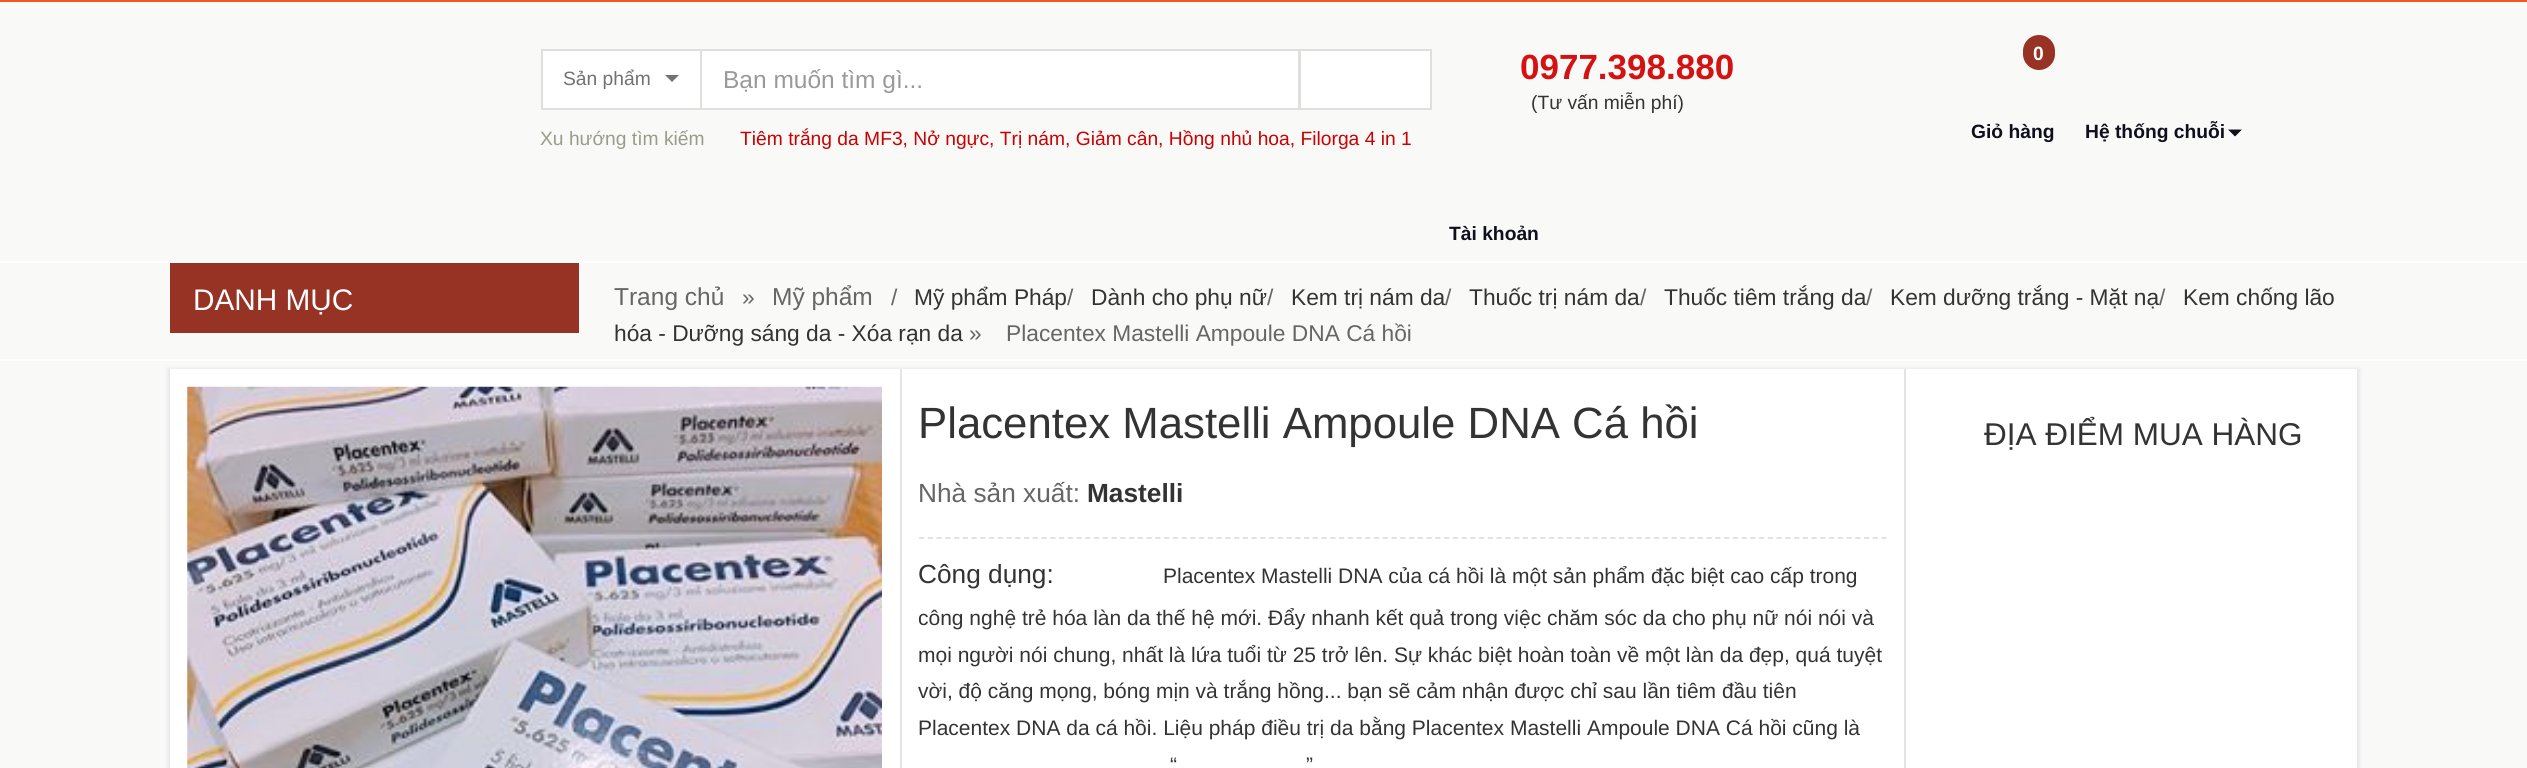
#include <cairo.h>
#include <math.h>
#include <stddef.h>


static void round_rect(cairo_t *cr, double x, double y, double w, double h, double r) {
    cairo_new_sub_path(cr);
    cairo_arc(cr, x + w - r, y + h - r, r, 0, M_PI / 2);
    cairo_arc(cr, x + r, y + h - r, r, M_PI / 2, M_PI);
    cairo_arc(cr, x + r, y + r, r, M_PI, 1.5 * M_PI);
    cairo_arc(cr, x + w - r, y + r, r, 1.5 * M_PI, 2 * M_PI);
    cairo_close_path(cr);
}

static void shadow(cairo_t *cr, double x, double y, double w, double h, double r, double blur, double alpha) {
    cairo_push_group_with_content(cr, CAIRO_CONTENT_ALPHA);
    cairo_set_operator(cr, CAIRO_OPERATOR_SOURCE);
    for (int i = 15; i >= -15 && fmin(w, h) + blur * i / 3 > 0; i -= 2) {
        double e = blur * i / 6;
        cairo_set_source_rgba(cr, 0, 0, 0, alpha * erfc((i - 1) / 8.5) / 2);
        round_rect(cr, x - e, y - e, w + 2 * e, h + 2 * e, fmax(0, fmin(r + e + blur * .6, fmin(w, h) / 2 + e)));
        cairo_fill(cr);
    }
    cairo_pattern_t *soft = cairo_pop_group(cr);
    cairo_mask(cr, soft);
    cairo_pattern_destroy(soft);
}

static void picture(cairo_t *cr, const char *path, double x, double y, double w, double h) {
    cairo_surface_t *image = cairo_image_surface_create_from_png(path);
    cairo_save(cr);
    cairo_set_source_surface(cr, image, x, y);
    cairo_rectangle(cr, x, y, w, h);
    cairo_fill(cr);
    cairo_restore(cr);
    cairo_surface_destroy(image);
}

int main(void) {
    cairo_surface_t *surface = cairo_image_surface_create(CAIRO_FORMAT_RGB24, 2527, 768);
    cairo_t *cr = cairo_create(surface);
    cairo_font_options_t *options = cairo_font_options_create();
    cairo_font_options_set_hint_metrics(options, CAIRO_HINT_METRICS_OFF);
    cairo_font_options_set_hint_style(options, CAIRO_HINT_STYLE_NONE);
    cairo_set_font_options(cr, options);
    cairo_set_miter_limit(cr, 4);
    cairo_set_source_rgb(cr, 0.976, 0.976, 0.969);
    cairo_paint(cr);
    cairo_set_source_rgb(cr, 0.941, 0.349, 0.129);
    cairo_rectangle(cr, 0, 0, 2527, 2);
    cairo_fill(cr);
    cairo_set_source_rgb(cr, 1, 1, 1);
    cairo_rectangle(cr, 0, 261, 2527, 2);
    cairo_fill(cr);
    cairo_rectangle(cr, 542, 50, 159, 59);
    cairo_fill_preserve(cr);
    cairo_set_source_rgb(cr, 0.875, 0.875, 0.867);
    cairo_stroke(cr);
    cairo_select_font_face(cr, "Liberation Sans", CAIRO_FONT_SLANT_NORMAL, CAIRO_FONT_WEIGHT_NORMAL);
    cairo_set_font_size(cr, 19.25);
    cairo_set_source_rgb(cr, 0.447, 0.447, 0.447);
    cairo_move_to(cr, 563, 85);
    cairo_show_text(cr, "Sản phẩm");
    cairo_new_path(cr);
    cairo_move_to(cr, 665, 75);
    cairo_line_to(cr, 679, 75);
    cairo_line_to(cr, 672, 82);
    cairo_close_path(cr);
    cairo_fill(cr);
    cairo_set_source_rgb(cr, 1, 1, 1);
    cairo_rectangle(cr, 1300, 50, 131, 59);
    cairo_fill_preserve(cr);
    cairo_set_source_rgb(cr, 0.875, 0.875, 0.867);
    cairo_stroke(cr);
    cairo_set_source_rgb(cr, 1, 1, 1);
    cairo_rectangle(cr, 701, 50, 598, 59);
    cairo_fill_preserve(cr);
    cairo_set_source_rgb(cr, 0.875, 0.875, 0.867);
    cairo_stroke(cr);
    cairo_set_font_size(cr, 24.5);
    cairo_set_source_rgb(cr, 0.6, 0.6, 0.6);
    cairo_move_to(cr, 723, 88);
    cairo_show_text(cr, "Bạn muốn tìm gì...");
    cairo_set_font_size(cr, 19.25);
    cairo_set_source_rgb(cr, 0.608, 0.608, 0.549);
    cairo_move_to(cr, 540, 145);
    cairo_show_text(cr, "Xu hướng tìm kiếm");
    cairo_set_source_rgb(cr, 0.8, 0, 0);
    cairo_move_to(cr, 740, 145);
    cairo_show_text(cr, "Tiêm trắng da MF3, Nở ngực, Trị nám, Giảm cân, Hồng nhủ hoa, Filorga 4 in 1");
    cairo_select_font_face(cr, "Liberation Sans", CAIRO_FONT_SLANT_NORMAL, CAIRO_FONT_WEIGHT_BOLD);
    cairo_set_font_size(cr, 35);
    cairo_set_source_rgb(cr, 0.831, 0.071, 0.071);
    cairo_move_to(cr, 1520, 79);
    cairo_show_text(cr, "0977.398.880");
    cairo_select_font_face(cr, "Liberation Sans", CAIRO_FONT_SLANT_NORMAL, CAIRO_FONT_WEIGHT_NORMAL);
    cairo_set_font_size(cr, 19.25);
    cairo_set_source_rgb(cr, 0.2, 0.2, 0.2);
    cairo_move_to(cr, 1531, 109);
    cairo_show_text(cr, "(Tư vấn miễn phí)");
    cairo_set_source_rgb(cr, 0.592, 0.2, 0.141);
    round_rect(cr, 2023, 35, 32, 35, 16);
    cairo_fill(cr);
    cairo_select_font_face(cr, "Liberation Sans", CAIRO_FONT_SLANT_NORMAL, CAIRO_FONT_WEIGHT_BOLD);
    cairo_set_source_rgb(cr, 1, 1, 1);
    cairo_move_to(cr, 2033, 60);
    cairo_show_text(cr, "0");
    cairo_set_source_rgb(cr, 0.059, 0.059, 0.118);
    cairo_move_to(cr, 1971, 138);
    cairo_show_text(cr, "Giỏ hàng");
    cairo_move_to(cr, 2085, 138);
    cairo_show_text(cr, "Hệ thống chuỗi");
    cairo_new_path(cr);
    cairo_move_to(cr, 2228, 129.5);
    cairo_line_to(cr, 2242, 129.5);
    cairo_line_to(cr, 2235, 136.5);
    cairo_close_path(cr);
    cairo_fill(cr);
    cairo_move_to(cr, 1449, 240);
    cairo_show_text(cr, "Tài khoản");
    cairo_set_source_rgb(cr, 1, 1, 1);
    cairo_rectangle(cr, 0, 359, 2527, 2);
    cairo_fill(cr);
    cairo_set_source_rgb(cr, 0.592, 0.2, 0.141);
    cairo_rectangle(cr, 170, 263, 409, 70);
    cairo_fill(cr);
    cairo_select_font_face(cr, "Liberation Sans", CAIRO_FONT_SLANT_NORMAL, CAIRO_FONT_WEIGHT_NORMAL);
    cairo_set_font_size(cr, 29.75);
    cairo_set_source_rgb(cr, 1, 1, 1);
    cairo_move_to(cr, 193, 310);
    cairo_show_text(cr, "DANH MỤC");
    cairo_set_font_size(cr, 24.5);
    cairo_set_source_rgb(cr, 0.4, 0.4, 0.4);
    cairo_move_to(cr, 614, 305);
    cairo_show_text(cr, "Trang chủ");
    cairo_set_font_size(cr, 22.75);
    cairo_move_to(cr, 742, 305);
    cairo_show_text(cr, "»");
    cairo_set_font_size(cr, 24.5);
    cairo_move_to(cr, 772, 305);
    cairo_show_text(cr, "Mỹ phẩm");
    cairo_set_font_size(cr, 22.75);
    cairo_move_to(cr, 891, 305);
    cairo_show_text(cr, "/");
    cairo_set_source_rgb(cr, 0.2, 0.2, 0.2);
    cairo_move_to(cr, 914, 305);
    cairo_show_text(cr, "Mỹ phẩm Pháp");
    cairo_set_source_rgb(cr, 0.4, 0.4, 0.4);
    cairo_move_to(cr, 1067, 305);
    cairo_show_text(cr, "/");
    cairo_set_source_rgb(cr, 0.2, 0.2, 0.2);
    cairo_move_to(cr, 1091, 305);
    cairo_show_text(cr, "Dành cho phụ nữ");
    cairo_set_source_rgb(cr, 0.4, 0.4, 0.4);
    cairo_move_to(cr, 1267, 305);
    cairo_show_text(cr, "/");
    cairo_set_source_rgb(cr, 0.2, 0.2, 0.2);
    cairo_move_to(cr, 1291, 305);
    cairo_show_text(cr, "Kem trị nám da");
    cairo_set_source_rgb(cr, 0.4, 0.4, 0.4);
    cairo_move_to(cr, 1445, 305);
    cairo_show_text(cr, "/");
    cairo_set_source_rgb(cr, 0.2, 0.2, 0.2);
    cairo_move_to(cr, 1469, 305);
    cairo_show_text(cr, "Thuốc trị nám da");
    cairo_set_source_rgb(cr, 0.4, 0.4, 0.4);
    cairo_move_to(cr, 1640, 305);
    cairo_show_text(cr, "/");
    cairo_set_source_rgb(cr, 0.2, 0.2, 0.2);
    cairo_move_to(cr, 1664, 305);
    cairo_show_text(cr, "Thuốc tiêm trắng da");
    cairo_set_source_rgb(cr, 0.4, 0.4, 0.4);
    cairo_move_to(cr, 1866, 305);
    cairo_show_text(cr, "/");
    cairo_set_source_rgb(cr, 0.2, 0.2, 0.2);
    cairo_move_to(cr, 1890, 305);
    cairo_show_text(cr, "Kem dưỡng trắng - Mặt nạ");
    cairo_set_source_rgb(cr, 0.4, 0.4, 0.4);
    cairo_move_to(cr, 2159, 305);
    cairo_show_text(cr, "/");
    cairo_set_source_rgb(cr, 0.2, 0.2, 0.2);
    cairo_move_to(cr, 2183, 305);
    cairo_show_text(cr, "Kem chống lão");
    cairo_move_to(cr, 614, 341);
    cairo_show_text(cr, "hóa - Dưỡng sáng da - Xóa rạn da");
    cairo_set_source_rgb(cr, 0.4, 0.4, 0.4);
    cairo_move_to(cr, 969, 341);
    cairo_show_text(cr, "»");
    cairo_move_to(cr, 1006, 341);
    cairo_show_text(cr, "Placentex Mastelli Ampoule DNA Cá hồi");
    cairo_set_source_rgb(cr, 0.373, 0.322, 0.49);
    shadow(cr, 168, 369, 2191, 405, 0, 2, 0.15);
    cairo_set_source_rgb(cr, 1, 1, 1);
    cairo_rectangle(cr, 170, 369, 2187, 399);
    cairo_fill(cr);
    picture(cr, "img1.png", 187, 386, 695, 382);
    cairo_set_source_rgb(cr, 0.894, 0.894, 0.89);
    cairo_rectangle(cr, 1904, 369, 2, 399);
    cairo_fill(cr);
    cairo_rectangle(cr, 900, 369, 2, 399);
    cairo_fill(cr);
    cairo_set_font_size(cr, 43.75);
    cairo_set_source_rgb(cr, 0.2, 0.2, 0.2);
    cairo_move_to(cr, 918, 438);
    cairo_show_text(cr, "Placentex Mastelli Ampoule DNA Cá hồi");
    cairo_set_font_size(cr, 26.25);
    cairo_set_source_rgb(cr, 0.4, 0.4, 0.4);
    cairo_move_to(cr, 918, 502);
    cairo_show_text(cr, "Nhà sản xuất:");
    cairo_select_font_face(cr, "Liberation Sans", CAIRO_FONT_SLANT_NORMAL, CAIRO_FONT_WEIGHT_BOLD);
    cairo_set_source_rgb(cr, 0.2, 0.2, 0.2);
    cairo_move_to(cr, 1087, 502);
    cairo_show_text(cr, "Mastelli");
    cairo_new_path(cr);
    cairo_move_to(cr, 919, 538);
    cairo_line_to(cr, 1886.5, 538);
    cairo_set_source_rgb(cr, 0.875, 0.875, 0.867);
    cairo_set_line_width(cr, 1.8);
    cairo_set_dash(cr, (double[]){5.25, 3.5}, 2, 0);
    cairo_stroke(cr);
    cairo_select_font_face(cr, "Liberation Sans", CAIRO_FONT_SLANT_NORMAL, CAIRO_FONT_WEIGHT_NORMAL);
    cairo_set_source_rgb(cr, 0.2, 0.2, 0.2);
    cairo_move_to(cr, 918, 583);
    cairo_show_text(cr, "Công dụng:");
    cairo_set_font_size(cr, 21);
    cairo_move_to(cr, 1163, 583);
    cairo_show_text(cr, "Placentex Mastelli DNA của cá hồi là một sản phẩm đặc biệt cao cấp trong");
    cairo_move_to(cr, 918, 625);
    cairo_show_text(cr, "công nghệ trẻ hóa làn da thế hệ mới. Đẩy nhanh kết quả trong việc chăm sóc da cho phụ nữ nói nói và");
    cairo_move_to(cr, 918, 662);
    cairo_show_text(cr, "mọi người nói chung, nhất là lứa tuổi từ 25 trở lên. Sự khác biệt hoàn toàn về một làn da đẹp, quá tuyệt");
    cairo_move_to(cr, 918, 698);
    cairo_show_text(cr, "vời, độ căng mọng, bóng mịn và trắng hồng... bạn sẽ cảm nhận được chỉ sau lần tiêm đầu tiên");
    cairo_move_to(cr, 918, 735);
    cairo_show_text(cr, "Placentex DNA da cá hồi. Liệu pháp điều trị da bằng Placentex Mastelli Ampoule DNA Cá hồi cũng là");
    cairo_move_to(cr, 1170, 772);
    cairo_show_text(cr, "“");
    cairo_move_to(cr, 1306, 772);
    cairo_show_text(cr, "”");
    cairo_set_font_size(cr, 31.5);
    cairo_move_to(cr, 1984, 445);
    cairo_show_text(cr, "ĐỊA ĐIỂM MUA HÀNG");
    cairo_surface_write_to_png(surface, "page.png");
    cairo_font_options_destroy(options);
    cairo_destroy(cr);
    cairo_surface_destroy(surface);
    return 0;
}
